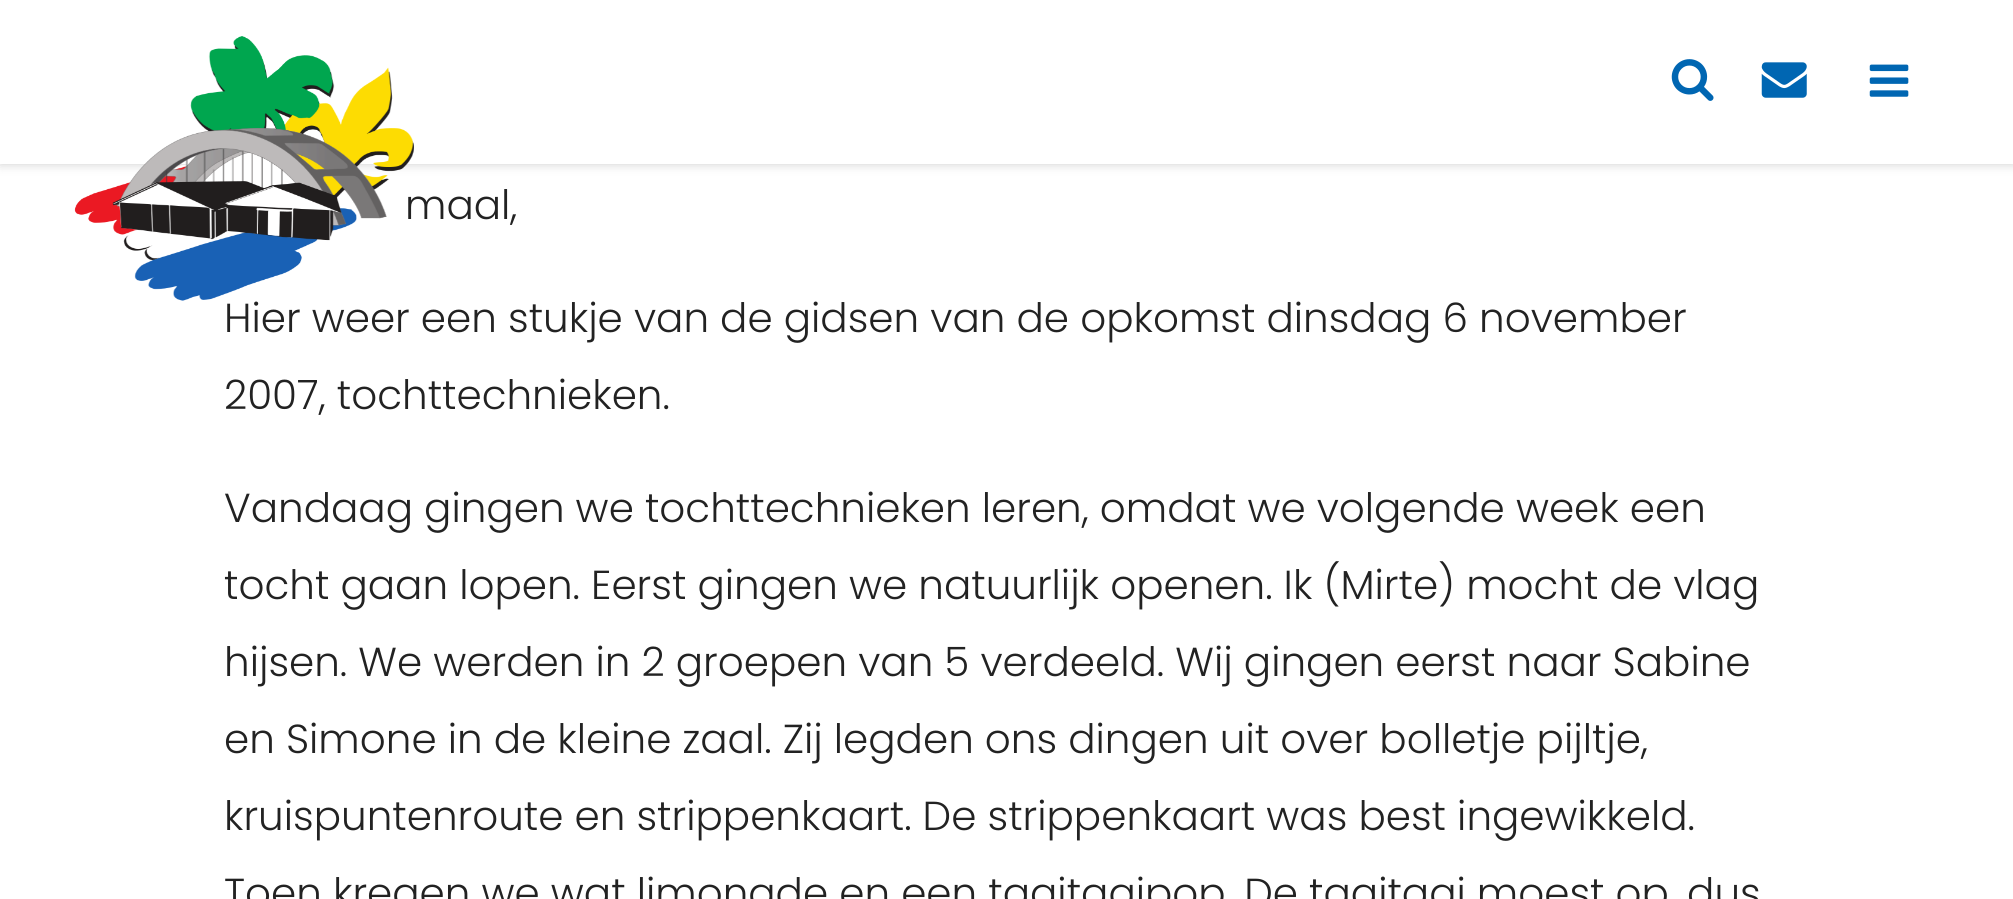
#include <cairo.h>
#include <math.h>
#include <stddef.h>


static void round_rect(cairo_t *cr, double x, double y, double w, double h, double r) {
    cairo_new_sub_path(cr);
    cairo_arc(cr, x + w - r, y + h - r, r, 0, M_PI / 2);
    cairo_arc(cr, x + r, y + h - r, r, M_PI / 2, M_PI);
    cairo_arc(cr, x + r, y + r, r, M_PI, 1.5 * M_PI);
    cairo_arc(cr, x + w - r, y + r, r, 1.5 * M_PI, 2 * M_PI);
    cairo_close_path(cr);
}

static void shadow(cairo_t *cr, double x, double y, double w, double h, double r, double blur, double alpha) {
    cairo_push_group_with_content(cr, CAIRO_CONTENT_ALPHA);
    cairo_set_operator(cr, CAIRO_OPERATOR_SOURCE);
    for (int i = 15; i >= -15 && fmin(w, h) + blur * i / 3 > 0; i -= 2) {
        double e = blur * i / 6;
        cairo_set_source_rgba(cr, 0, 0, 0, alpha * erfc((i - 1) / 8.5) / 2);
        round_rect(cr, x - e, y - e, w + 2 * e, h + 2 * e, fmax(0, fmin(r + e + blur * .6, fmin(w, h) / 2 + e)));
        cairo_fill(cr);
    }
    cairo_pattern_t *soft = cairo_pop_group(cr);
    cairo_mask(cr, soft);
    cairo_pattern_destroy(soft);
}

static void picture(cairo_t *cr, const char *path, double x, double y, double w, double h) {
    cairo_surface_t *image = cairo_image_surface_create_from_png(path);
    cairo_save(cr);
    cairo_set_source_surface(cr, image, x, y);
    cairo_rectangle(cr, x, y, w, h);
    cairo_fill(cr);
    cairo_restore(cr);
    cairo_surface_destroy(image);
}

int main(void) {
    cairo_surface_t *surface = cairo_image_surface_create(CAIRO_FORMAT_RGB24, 2013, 899);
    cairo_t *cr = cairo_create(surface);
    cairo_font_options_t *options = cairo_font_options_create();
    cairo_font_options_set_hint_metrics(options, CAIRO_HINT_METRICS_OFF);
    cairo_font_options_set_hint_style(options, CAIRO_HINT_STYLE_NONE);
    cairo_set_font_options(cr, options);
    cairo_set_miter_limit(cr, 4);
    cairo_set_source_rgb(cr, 1, 1, 1);
    cairo_paint(cr);
    cairo_set_source_rgb(cr, 0, 0, 0);
    shadow(cr, 0, 0, 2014, 164, 0, 5.5, 0.2);
    cairo_set_source_rgb(cr, 1, 1, 1);
    cairo_rectangle(cr, 0, 0, 2013, 164);
    cairo_fill(cr);
    cairo_select_font_face(cr, "Poppins Light", CAIRO_FONT_SLANT_NORMAL, CAIRO_FONT_WEIGHT_NORMAL);
    cairo_set_font_size(cr, 40.5);
    cairo_set_source_rgb(cr, 0.133, 0.133, 0.133);
    cairo_move_to(cr, 405, 219);
    cairo_show_text(cr, "maal,");
    picture(cr, "img1.png", 74, 36, 340, 265);
    picture(cr, "img2.png", 1671, 59, 43, 42);
    picture(cr, "img3.png", 1761, 62, 46, 36);
    picture(cr, "img4.png", 1869, 64, 40, 33);
    cairo_move_to(cr, 224, 332);
    cairo_show_text(cr, "Hier weer een stukje van de gidsen van de opkomst dinsdag 6 november");
    cairo_move_to(cr, 224, 409);
    cairo_show_text(cr, "2007, tochttechnieken.");
    cairo_move_to(cr, 224, 522);
    cairo_show_text(cr, "Vandaag gingen we tochttechnieken leren, omdat we volgende week een");
    cairo_move_to(cr, 224, 599);
    cairo_show_text(cr, "tocht gaan lopen. Eerst gingen we natuurlijk openen. Ik (Mirte) mocht de vlag");
    cairo_move_to(cr, 224, 676);
    cairo_show_text(cr, "hijsen. We werden in 2 groepen van 5 verdeeld. Wij gingen eerst naar Sabine");
    cairo_move_to(cr, 224, 753);
    cairo_show_text(cr, "en Simone in de kleine zaal. Zij legden ons dingen uit over bolletje pijltje,");
    cairo_move_to(cr, 224, 830);
    cairo_show_text(cr, "kruispuntenroute en strippenkaart. De strippenkaart was best ingewikkeld.");
    cairo_move_to(cr, 224, 907);
    cairo_show_text(cr, "Toen kregen we wat limonade en een taaitaaipop. De taaitaai moest op, dus");
    cairo_surface_write_to_png(surface, "page.png");
    cairo_font_options_destroy(options);
    cairo_destroy(cr);
    cairo_surface_destroy(surface);
    return 0;
}
